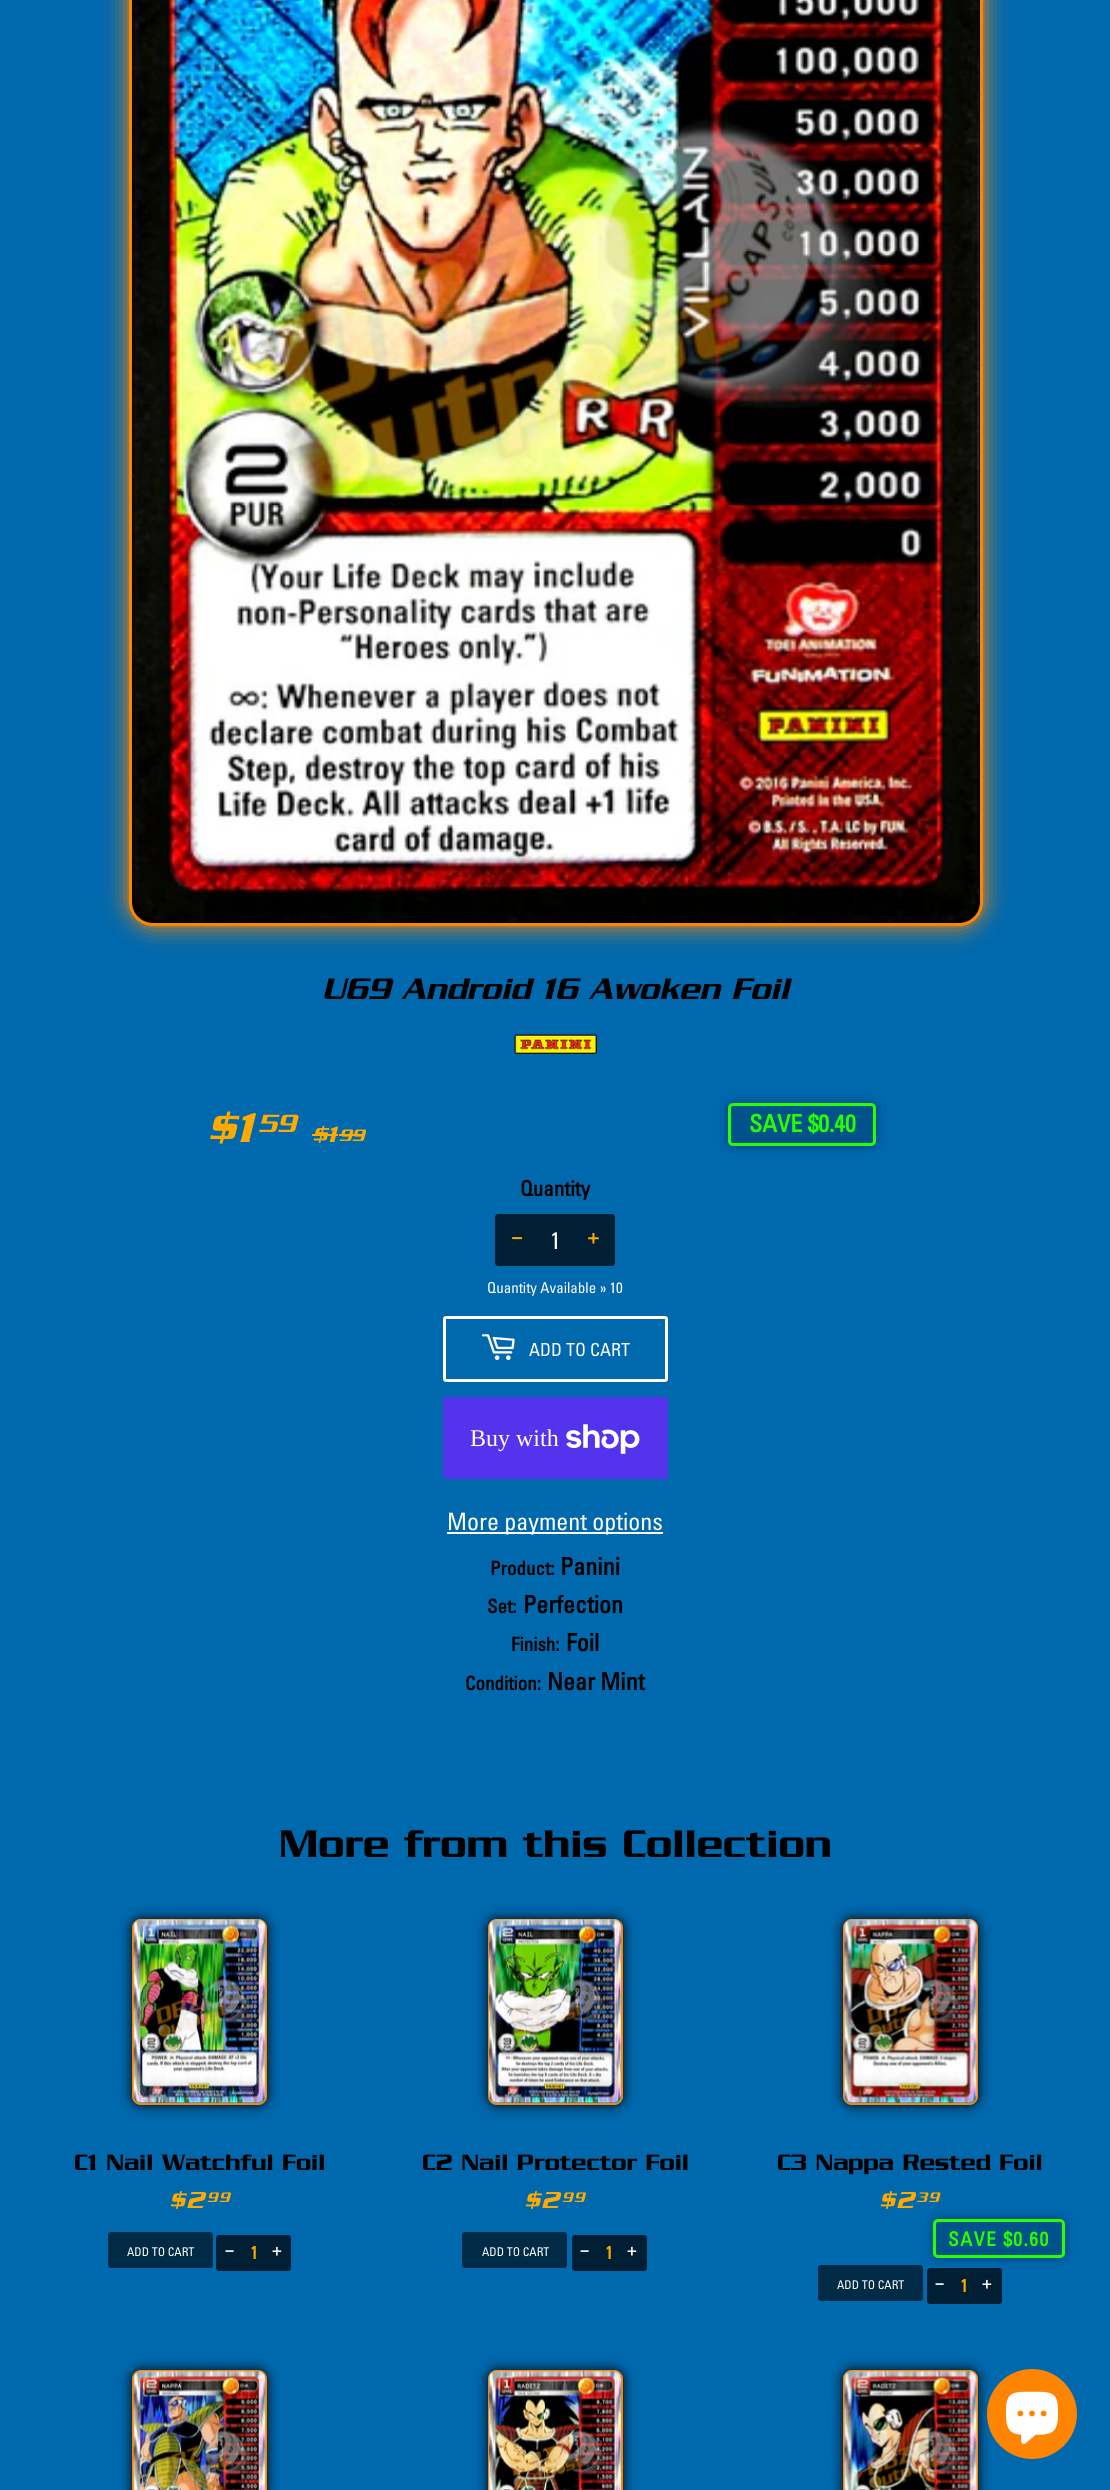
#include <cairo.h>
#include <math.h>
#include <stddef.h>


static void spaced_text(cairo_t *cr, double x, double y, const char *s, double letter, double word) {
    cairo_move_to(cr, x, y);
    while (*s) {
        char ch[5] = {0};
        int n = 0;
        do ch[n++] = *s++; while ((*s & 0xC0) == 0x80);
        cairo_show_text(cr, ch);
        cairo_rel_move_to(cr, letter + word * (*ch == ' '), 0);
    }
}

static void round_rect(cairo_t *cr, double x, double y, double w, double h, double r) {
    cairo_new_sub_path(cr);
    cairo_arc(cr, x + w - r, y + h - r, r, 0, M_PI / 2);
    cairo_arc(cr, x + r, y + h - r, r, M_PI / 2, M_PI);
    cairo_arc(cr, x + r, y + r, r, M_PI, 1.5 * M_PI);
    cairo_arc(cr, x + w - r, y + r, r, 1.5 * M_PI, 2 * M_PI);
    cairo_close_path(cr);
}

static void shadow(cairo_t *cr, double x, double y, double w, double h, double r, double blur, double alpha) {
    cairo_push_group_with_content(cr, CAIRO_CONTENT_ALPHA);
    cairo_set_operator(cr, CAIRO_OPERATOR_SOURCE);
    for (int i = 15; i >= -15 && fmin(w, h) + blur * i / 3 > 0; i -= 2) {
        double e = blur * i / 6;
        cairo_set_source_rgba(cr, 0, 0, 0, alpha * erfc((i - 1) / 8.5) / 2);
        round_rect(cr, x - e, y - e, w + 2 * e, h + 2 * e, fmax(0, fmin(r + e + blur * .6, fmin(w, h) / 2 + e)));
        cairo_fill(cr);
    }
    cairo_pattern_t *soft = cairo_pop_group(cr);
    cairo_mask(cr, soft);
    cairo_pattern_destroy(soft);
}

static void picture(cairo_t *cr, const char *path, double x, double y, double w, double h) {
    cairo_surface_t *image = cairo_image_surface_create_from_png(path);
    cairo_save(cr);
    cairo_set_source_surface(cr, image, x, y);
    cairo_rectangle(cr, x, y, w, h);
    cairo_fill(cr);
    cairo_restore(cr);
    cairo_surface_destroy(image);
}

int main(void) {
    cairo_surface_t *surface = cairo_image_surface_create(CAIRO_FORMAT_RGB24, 1110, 2490);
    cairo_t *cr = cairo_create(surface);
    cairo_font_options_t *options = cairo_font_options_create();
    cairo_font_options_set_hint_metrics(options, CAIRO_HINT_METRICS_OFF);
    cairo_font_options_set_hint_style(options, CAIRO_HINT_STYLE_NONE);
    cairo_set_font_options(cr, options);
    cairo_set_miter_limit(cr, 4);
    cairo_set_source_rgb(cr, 0, 0.408, 0.678);
    cairo_paint(cr);
    cairo_set_source_rgb(cr, 1, 0.518, 0);
    shadow(cr, 129, -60, 854, 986, 24, 12, 1);
    cairo_set_source_rgb(cr, 0, 0, 0);
    round_rect(cr, 130.5, -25.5, 851, 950, 22.5);
    cairo_fill_preserve(cr);
    cairo_set_source_rgb(cr, 1, 0.518, 0);
    cairo_set_line_width(cr, 3);
    cairo_stroke(cr);
    cairo_save(cr);
    cairo_set_fill_rule(cr, CAIRO_FILL_RULE_EVEN_ODD);
    cairo_new_path(cr);
    cairo_move_to(cr, 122, 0);
    cairo_line_to(cr, 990, 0);
    cairo_line_to(cr, 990, 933);
    cairo_line_to(cr, 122, 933);
    cairo_close_path(cr);
    cairo_move_to(cr, 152, -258);
    cairo_line_to(cr, 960, -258);
    cairo_curve_to(cr, 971, -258, 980, -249, 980, -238);
    cairo_line_to(cr, 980, 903);
    cairo_curve_to(cr, 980, 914, 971, 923, 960, 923);
    cairo_line_to(cr, 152, 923);
    cairo_curve_to(cr, 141, 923, 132, 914, 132, 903);
    cairo_line_to(cr, 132, -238);
    cairo_curve_to(cr, 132, -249, 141, -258, 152, -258);
    cairo_close_path(cr);
    cairo_clip(cr);
    cairo_set_source_rgb(cr, 1, 0.518, 0);
    shadow(cr, 132, -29, 848, 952, 20, 3, 1);
    cairo_restore(cr);
    picture(cr, "img1.png", 132, 0, 848, 923);
    cairo_select_font_face(cr, "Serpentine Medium", CAIRO_FONT_SLANT_ITALIC, CAIRO_FONT_WEIGHT_NORMAL);
    cairo_set_font_size(cr, 32);
    cairo_set_source_rgb(cr, 0, 0, 0);
    cairo_move_to(cr, 322, 999);
    cairo_show_text(cr, "U69 Android 16 Awoken Foil");
    picture(cr, "img2.png", 514, 1034, 83, 20);
    cairo_set_font_size(cr, 45);
    cairo_set_source_rgb(cr, 1, 0.667, 0);
    cairo_move_to(cr, 207, 1142);
    cairo_show_text(cr, "$1");
    cairo_set_font_size(cr, 27);
    cairo_move_to(cr, 258, 1132);
    cairo_show_text(cr, "59");
    cairo_set_font_size(cr, 24);
    cairo_move_to(cr, 312, 1142);
    cairo_show_text(cr, "$1");
    cairo_set_font_size(cr, 18);
    cairo_move_to(cr, 339, 1141);
    cairo_show_text(cr, "99");
    cairo_rectangle(cr, 312, 1134, 26, 2);
    cairo_fill(cr);
    cairo_rectangle(cr, 339, 1134, 26, 2);
    cairo_fill(cr);
    cairo_save(cr);
    cairo_set_fill_rule(cr, CAIRO_FILL_RULE_EVEN_ODD);
    cairo_new_path(cr);
    cairo_move_to(cr, 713, 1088);
    cairo_line_to(cr, 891, 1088);
    cairo_line_to(cr, 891, 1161);
    cairo_line_to(cr, 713, 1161);
    cairo_close_path(cr);
    cairo_move_to(cr, 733, 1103);
    cairo_line_to(cr, 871, 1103);
    cairo_curve_to(cr, 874, 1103, 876, 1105, 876, 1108);
    cairo_line_to(cr, 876, 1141);
    cairo_curve_to(cr, 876, 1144, 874, 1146, 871, 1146);
    cairo_line_to(cr, 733, 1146);
    cairo_curve_to(cr, 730, 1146, 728, 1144, 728, 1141);
    cairo_line_to(cr, 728, 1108);
    cairo_curve_to(cr, 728, 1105, 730, 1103, 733, 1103);
    cairo_close_path(cr);
    cairo_clip(cr);
    cairo_set_source_rgb(cr, 0, 0.224, 0.478);
    shadow(cr, 728, 1103, 148, 43, 5, 4.5, 1);
    cairo_restore(cr);
    cairo_set_source_rgba(cr, 0, 0, 0, 0.2);
    round_rect(cr, 729.5, 1104.5, 145, 40, 3.5);
    cairo_fill_preserve(cr);
    cairo_set_source_rgb(cr, 0.149, 1, 0);
    cairo_stroke(cr);
    cairo_select_font_face(cr, "Univers", CAIRO_FONT_SLANT_NORMAL, CAIRO_FONT_WEIGHT_BOLD);
    cairo_set_font_size(cr, 24);
    cairo_move_to(cr, 749, 1132);
    cairo_show_text(cr, "SAVE $0.40");
    cairo_set_font_size(cr, 21);
    cairo_set_source_rgb(cr, 0, 0, 0);
    cairo_move_to(cr, 520, 1196);
    cairo_show_text(cr, "Quantity");
    cairo_set_source_rgb(cr, 0, 0.122, 0.204);
    round_rect(cr, 495, 1214, 120, 52, 3);
    cairo_fill(cr);
    cairo_select_font_face(cr, "Unica One", CAIRO_FONT_SLANT_NORMAL, CAIRO_FONT_WEIGHT_NORMAL);
    cairo_set_font_size(cr, 33);
    cairo_set_source_rgb(cr, 1, 0.667, 0);
    cairo_move_to(cr, 509, 1249);
    cairo_show_text(cr, "-");
    cairo_select_font_face(cr, "Univers", CAIRO_FONT_SLANT_NORMAL, CAIRO_FONT_WEIGHT_NORMAL);
    cairo_set_font_size(cr, 24);
    cairo_set_source_rgb(cr, 1, 1, 1);
    cairo_move_to(cr, 550, 1249);
    cairo_show_text(cr, "1");
    cairo_select_font_face(cr, "Unica One", CAIRO_FONT_SLANT_NORMAL, CAIRO_FONT_WEIGHT_NORMAL);
    cairo_set_font_size(cr, 33);
    cairo_set_source_rgb(cr, 1, 0.667, 0);
    cairo_move_to(cr, 585, 1249);
    cairo_show_text(cr, "+");
    cairo_select_font_face(cr, "Univers", CAIRO_FONT_SLANT_NORMAL, CAIRO_FONT_WEIGHT_NORMAL);
    cairo_set_font_size(cr, 15);
    cairo_set_source_rgb(cr, 1, 1, 1);
    cairo_move_to(cr, 487, 1293);
    cairo_show_text(cr, "Quantity Available » 10");
    round_rect(cr, 444.5, 1317.5, 222, 63, 1.5);
    cairo_stroke(cr);
    picture(cr, "img3.png", 481, 1334, 34, 26);
    cairo_set_font_size(cr, 18);
    cairo_move_to(cr, 529, 1356);
    cairo_show_text(cr, "ADD TO CART");
    cairo_set_source_rgb(cr, 0.329, 0.2, 0.922);
    round_rect(cr, 443, 1397, 225, 82, 3);
    cairo_fill(cr);
    cairo_select_font_face(cr, "Liberation Serif", CAIRO_FONT_SLANT_NORMAL, CAIRO_FONT_WEIGHT_NORMAL);
    cairo_set_font_size(cr, 24);
    cairo_set_source_rgb(cr, 1, 1, 1);
    cairo_move_to(cr, 470, 1446);
    cairo_show_text(cr, "Buy with");
    picture(cr, "img4.png", 566, 1424, 74, 30);
    cairo_rectangle(cr, 447, 1532, 216, 2);
    cairo_fill(cr);
    cairo_select_font_face(cr, "Univers", CAIRO_FONT_SLANT_NORMAL, CAIRO_FONT_WEIGHT_NORMAL);
    cairo_move_to(cr, 447, 1530);
    cairo_show_text(cr, "More payment options");
    cairo_select_font_face(cr, "Univers", CAIRO_FONT_SLANT_NORMAL, CAIRO_FONT_WEIGHT_BOLD);
    cairo_set_font_size(cr, 19);
    cairo_set_source_rgb(cr, 0, 0, 0);
    cairo_move_to(cr, 490, 1575);
    cairo_show_text(cr, "Product:");
    cairo_set_font_size(cr, 24);
    cairo_move_to(cr, 560, 1575);
    cairo_show_text(cr, "Panini");
    cairo_set_font_size(cr, 19);
    cairo_move_to(cr, 487, 1613);
    cairo_show_text(cr, "Set:");
    cairo_set_font_size(cr, 24);
    cairo_move_to(cr, 523, 1613);
    cairo_show_text(cr, "Perfection");
    cairo_set_font_size(cr, 19);
    cairo_move_to(cr, 511, 1651);
    cairo_show_text(cr, "Finish:");
    cairo_set_font_size(cr, 24);
    cairo_move_to(cr, 566, 1651);
    cairo_show_text(cr, "Foil");
    cairo_set_font_size(cr, 19);
    cairo_move_to(cr, 465, 1690);
    cairo_show_text(cr, "Condition:");
    cairo_set_font_size(cr, 24);
    cairo_move_to(cr, 547, 1690);
    cairo_show_text(cr, "Near Mint");
    cairo_select_font_face(cr, "Serpentine Medium", CAIRO_FONT_SLANT_NORMAL, CAIRO_FONT_WEIGHT_NORMAL);
    cairo_set_font_size(cr, 41.6);
    cairo_move_to(cr, 279, 1857);
    cairo_show_text(cr, "More from this Collection");
    cairo_save(cr);
    cairo_set_fill_rule(cr, CAIRO_FILL_RULE_EVEN_ODD);
    cairo_new_path(cr);
    cairo_move_to(cr, 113, 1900);
    cairo_line_to(cr, 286, 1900);
    cairo_line_to(cr, 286, 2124);
    cairo_line_to(cr, 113, 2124);
    cairo_close_path(cr);
    cairo_move_to(cr, 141, 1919);
    cairo_line_to(cr, 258, 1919);
    cairo_curve_to(cr, 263, 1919, 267, 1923, 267, 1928);
    cairo_line_to(cr, 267, 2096);
    cairo_curve_to(cr, 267, 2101, 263, 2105, 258, 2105);
    cairo_line_to(cr, 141, 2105);
    cairo_curve_to(cr, 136, 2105, 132, 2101, 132, 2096);
    cairo_line_to(cr, 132, 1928);
    cairo_curve_to(cr, 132, 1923, 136, 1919, 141, 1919);
    cairo_close_path(cr);
    cairo_clip(cr);
    cairo_set_source_rgb(cr, 0, 0, 0);
    shadow(cr, 132, 1919, 135, 186, 9, 6, 1);
    cairo_restore(cr);
    round_rect(cr, 133, 1920, 133, 184, 8);
    cairo_set_source_rgb(cr, 1, 0.518, 0);
    cairo_set_line_width(cr, 2);
    cairo_stroke(cr);
    picture(cr, "img5.png", 133, 1919, 133, 184);
    cairo_set_font_size(cr, 24);
    cairo_set_source_rgb(cr, 0, 0, 0);
    cairo_move_to(cr, 74, 2170);
    cairo_show_text(cr, "C1 Nail Watchful Foil");
    cairo_select_font_face(cr, "Serpentine Medium", CAIRO_FONT_SLANT_ITALIC, CAIRO_FONT_WEIGHT_NORMAL);
    cairo_set_font_size(cr, 25);
    cairo_set_source_rgb(cr, 1, 0.667, 0);
    spaced_text(cr, 169, 2208, "$2", 1.5, 0);
    cairo_set_font_size(cr, 15);
    spaced_text(cr, 207, 2202, "99", 1.5, 0);
    cairo_set_source_rgb(cr, 0, 0.165, 0.271);
    round_rect(cr, 108, 2232, 105, 36, 3);
    cairo_fill(cr);
    cairo_select_font_face(cr, "Univers", CAIRO_FONT_SLANT_NORMAL, CAIRO_FONT_WEIGHT_NORMAL);
    cairo_set_font_size(cr, 12);
    cairo_set_source_rgb(cr, 1, 1, 1);
    cairo_move_to(cr, 127, 2256);
    cairo_show_text(cr, "ADD TO CART");
    cairo_set_source_rgb(cr, 0, 0.122, 0.204);
    round_rect(cr, 216, 2235, 75, 36, 3);
    cairo_fill(cr);
    cairo_select_font_face(cr, "Unica One", CAIRO_FONT_SLANT_NORMAL, CAIRO_FONT_WEIGHT_NORMAL);
    cairo_set_font_size(cr, 27);
    cairo_set_source_rgb(cr, 1, 1, 1);
    cairo_move_to(cr, 223, 2260);
    cairo_show_text(cr, "-");
    cairo_select_font_face(cr, "Univers", CAIRO_FONT_SLANT_NORMAL, CAIRO_FONT_WEIGHT_BOLD);
    cairo_set_font_size(cr, 18);
    cairo_set_source_rgb(cr, 1, 0.667, 0);
    cairo_move_to(cr, 250, 2259);
    cairo_show_text(cr, "1");
    cairo_select_font_face(cr, "Unica One", CAIRO_FONT_SLANT_NORMAL, CAIRO_FONT_WEIGHT_NORMAL);
    cairo_set_font_size(cr, 27);
    cairo_set_source_rgb(cr, 1, 1, 1);
    cairo_move_to(cr, 270, 2260);
    cairo_show_text(cr, "+");
    cairo_save(cr);
    cairo_set_fill_rule(cr, CAIRO_FILL_RULE_EVEN_ODD);
    cairo_new_path(cr);
    cairo_move_to(cr, 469, 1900);
    cairo_line_to(cr, 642, 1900);
    cairo_line_to(cr, 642, 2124);
    cairo_line_to(cr, 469, 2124);
    cairo_close_path(cr);
    cairo_move_to(cr, 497, 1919);
    cairo_line_to(cr, 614, 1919);
    cairo_curve_to(cr, 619, 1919, 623, 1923, 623, 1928);
    cairo_line_to(cr, 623, 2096);
    cairo_curve_to(cr, 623, 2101, 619, 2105, 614, 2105);
    cairo_line_to(cr, 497, 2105);
    cairo_curve_to(cr, 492, 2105, 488, 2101, 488, 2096);
    cairo_line_to(cr, 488, 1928);
    cairo_curve_to(cr, 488, 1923, 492, 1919, 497, 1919);
    cairo_close_path(cr);
    cairo_clip(cr);
    cairo_set_source_rgb(cr, 0, 0, 0);
    shadow(cr, 488, 1919, 135, 186, 9, 6, 1);
    cairo_restore(cr);
    round_rect(cr, 489, 1920, 133, 184, 8);
    cairo_set_source_rgb(cr, 1, 0.518, 0);
    cairo_stroke(cr);
    picture(cr, "img6.png", 489, 1919, 132, 184);
    cairo_select_font_face(cr, "Serpentine Medium", CAIRO_FONT_SLANT_NORMAL, CAIRO_FONT_WEIGHT_NORMAL);
    cairo_set_font_size(cr, 24);
    cairo_set_source_rgb(cr, 0, 0, 0);
    cairo_move_to(cr, 422, 2170);
    cairo_show_text(cr, "C2 Nail Protector Foil");
    cairo_select_font_face(cr, "Serpentine Medium", CAIRO_FONT_SLANT_ITALIC, CAIRO_FONT_WEIGHT_NORMAL);
    cairo_set_font_size(cr, 25);
    cairo_set_source_rgb(cr, 1, 0.667, 0);
    spaced_text(cr, 524, 2208, "$2", 1.5, 0);
    cairo_set_font_size(cr, 15);
    spaced_text(cr, 562, 2202, "99", 1.5, 0);
    cairo_set_source_rgb(cr, 0, 0.165, 0.271);
    round_rect(cr, 462, 2232, 105, 36, 3);
    cairo_fill(cr);
    cairo_select_font_face(cr, "Univers", CAIRO_FONT_SLANT_NORMAL, CAIRO_FONT_WEIGHT_NORMAL);
    cairo_set_font_size(cr, 12);
    cairo_set_source_rgb(cr, 1, 1, 1);
    cairo_move_to(cr, 482, 2256);
    cairo_show_text(cr, "ADD TO CART");
    cairo_set_source_rgb(cr, 0, 0.122, 0.204);
    round_rect(cr, 572, 2235, 75, 36, 3);
    cairo_fill(cr);
    cairo_select_font_face(cr, "Unica One", CAIRO_FONT_SLANT_NORMAL, CAIRO_FONT_WEIGHT_NORMAL);
    cairo_set_font_size(cr, 27);
    cairo_set_source_rgb(cr, 1, 1, 1);
    cairo_move_to(cr, 578, 2260);
    cairo_show_text(cr, "-");
    cairo_select_font_face(cr, "Univers", CAIRO_FONT_SLANT_NORMAL, CAIRO_FONT_WEIGHT_BOLD);
    cairo_set_font_size(cr, 18);
    cairo_set_source_rgb(cr, 1, 0.667, 0);
    cairo_move_to(cr, 605, 2259);
    cairo_show_text(cr, "1");
    cairo_select_font_face(cr, "Unica One", CAIRO_FONT_SLANT_NORMAL, CAIRO_FONT_WEIGHT_NORMAL);
    cairo_set_font_size(cr, 27);
    cairo_set_source_rgb(cr, 1, 1, 1);
    cairo_move_to(cr, 625, 2260);
    cairo_show_text(cr, "+");
    cairo_save(cr);
    cairo_set_fill_rule(cr, CAIRO_FILL_RULE_EVEN_ODD);
    cairo_new_path(cr);
    cairo_move_to(cr, 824, 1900);
    cairo_line_to(cr, 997, 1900);
    cairo_line_to(cr, 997, 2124);
    cairo_line_to(cr, 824, 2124);
    cairo_close_path(cr);
    cairo_move_to(cr, 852, 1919);
    cairo_line_to(cr, 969, 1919);
    cairo_curve_to(cr, 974, 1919, 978, 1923, 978, 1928);
    cairo_line_to(cr, 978, 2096);
    cairo_curve_to(cr, 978, 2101, 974, 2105, 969, 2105);
    cairo_line_to(cr, 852, 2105);
    cairo_curve_to(cr, 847, 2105, 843, 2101, 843, 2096);
    cairo_line_to(cr, 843, 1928);
    cairo_curve_to(cr, 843, 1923, 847, 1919, 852, 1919);
    cairo_close_path(cr);
    cairo_clip(cr);
    cairo_set_source_rgb(cr, 0, 0, 0);
    shadow(cr, 843, 1919, 135, 186, 9, 6, 1);
    cairo_restore(cr);
    round_rect(cr, 844, 1920, 133, 184, 8);
    cairo_set_source_rgb(cr, 1, 0.518, 0);
    cairo_stroke(cr);
    picture(cr, "img7.png", 844, 1919, 133, 184);
    cairo_select_font_face(cr, "Serpentine Medium", CAIRO_FONT_SLANT_NORMAL, CAIRO_FONT_WEIGHT_NORMAL);
    cairo_set_font_size(cr, 24);
    cairo_set_source_rgb(cr, 0, 0, 0);
    cairo_move_to(cr, 777, 2170);
    cairo_show_text(cr, "C3 Nappa Rested Foil");
    cairo_select_font_face(cr, "Serpentine Medium", CAIRO_FONT_SLANT_ITALIC, CAIRO_FONT_WEIGHT_NORMAL);
    cairo_set_font_size(cr, 25);
    cairo_set_source_rgb(cr, 1, 0.667, 0);
    spaced_text(cr, 879, 2208, "$2", 1.5, 0);
    cairo_set_font_size(cr, 15);
    spaced_text(cr, 917, 2202, "39", 1.5, 0);
    cairo_save(cr);
    cairo_set_fill_rule(cr, CAIRO_FILL_RULE_EVEN_ODD);
    cairo_new_path(cr);
    cairo_move_to(cr, 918, 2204);
    cairo_line_to(cr, 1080, 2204);
    cairo_line_to(cr, 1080, 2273);
    cairo_line_to(cr, 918, 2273);
    cairo_close_path(cr);
    cairo_move_to(cr, 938, 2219);
    cairo_line_to(cr, 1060, 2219);
    cairo_curve_to(cr, 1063, 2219, 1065, 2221, 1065, 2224);
    cairo_line_to(cr, 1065, 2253);
    cairo_curve_to(cr, 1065, 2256, 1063, 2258, 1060, 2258);
    cairo_line_to(cr, 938, 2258);
    cairo_curve_to(cr, 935, 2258, 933, 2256, 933, 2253);
    cairo_line_to(cr, 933, 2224);
    cairo_curve_to(cr, 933, 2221, 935, 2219, 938, 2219);
    cairo_close_path(cr);
    cairo_clip(cr);
    cairo_set_source_rgb(cr, 0, 0.224, 0.478);
    shadow(cr, 933, 2219, 132, 39, 5, 4.5, 1);
    cairo_restore(cr);
    cairo_set_source_rgba(cr, 0, 0, 0, 0.2);
    round_rect(cr, 934.5, 2220.5, 129, 36, 3.5);
    cairo_fill_preserve(cr);
    cairo_set_source_rgb(cr, 0.149, 1, 0);
    cairo_set_line_width(cr, 3);
    cairo_stroke(cr);
    cairo_select_font_face(cr, "Univers", CAIRO_FONT_SLANT_NORMAL, CAIRO_FONT_WEIGHT_BOLD);
    cairo_set_font_size(cr, 19.5);
    spaced_text(cr, 948, 2246, "SAVE $0.60", 1.5, 0);
    cairo_set_source_rgb(cr, 0, 0.165, 0.271);
    round_rect(cr, 818, 2265, 105, 36, 3);
    cairo_fill(cr);
    cairo_select_font_face(cr, "Univers", CAIRO_FONT_SLANT_NORMAL, CAIRO_FONT_WEIGHT_NORMAL);
    cairo_set_font_size(cr, 12);
    cairo_set_source_rgb(cr, 1, 1, 1);
    cairo_move_to(cr, 837, 2289);
    cairo_show_text(cr, "ADD TO CART");
    cairo_set_source_rgb(cr, 0, 0.122, 0.204);
    round_rect(cr, 927, 2268, 75, 36, 3);
    cairo_fill(cr);
    cairo_select_font_face(cr, "Unica One", CAIRO_FONT_SLANT_NORMAL, CAIRO_FONT_WEIGHT_NORMAL);
    cairo_set_font_size(cr, 27);
    cairo_set_source_rgb(cr, 1, 1, 1);
    cairo_move_to(cr, 933, 2293);
    cairo_show_text(cr, "-");
    cairo_select_font_face(cr, "Univers", CAIRO_FONT_SLANT_NORMAL, CAIRO_FONT_WEIGHT_BOLD);
    cairo_set_font_size(cr, 18);
    cairo_set_source_rgb(cr, 1, 0.667, 0);
    cairo_move_to(cr, 960, 2292);
    cairo_show_text(cr, "1");
    cairo_select_font_face(cr, "Unica One", CAIRO_FONT_SLANT_NORMAL, CAIRO_FONT_WEIGHT_NORMAL);
    cairo_set_font_size(cr, 27);
    cairo_set_source_rgb(cr, 1, 1, 1);
    cairo_move_to(cr, 980, 2293);
    cairo_show_text(cr, "+");
    cairo_set_source_rgb(cr, 0, 0, 0);
    shadow(cr, 132, 2370, 135, 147, 9, 6, 1);
    round_rect(cr, 133, 2371, 133, 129, 8);
    cairo_set_source_rgb(cr, 1, 0.518, 0);
    cairo_set_line_width(cr, 2);
    cairo_stroke(cr);
    picture(cr, "img8.png", 133, 2370, 133, 120);
    cairo_save(cr);
    cairo_set_fill_rule(cr, CAIRO_FILL_RULE_EVEN_ODD);
    cairo_new_path(cr);
    cairo_move_to(cr, 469, 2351);
    cairo_line_to(cr, 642, 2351);
    cairo_line_to(cr, 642, 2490);
    cairo_line_to(cr, 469, 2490);
    cairo_close_path(cr);
    cairo_move_to(cr, 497, 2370);
    cairo_line_to(cr, 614, 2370);
    cairo_curve_to(cr, 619, 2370, 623, 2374, 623, 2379);
    cairo_line_to(cr, 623, 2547);
    cairo_curve_to(cr, 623, 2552, 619, 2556, 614, 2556);
    cairo_line_to(cr, 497, 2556);
    cairo_curve_to(cr, 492, 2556, 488, 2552, 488, 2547);
    cairo_line_to(cr, 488, 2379);
    cairo_curve_to(cr, 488, 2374, 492, 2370, 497, 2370);
    cairo_close_path(cr);
    cairo_clip(cr);
    cairo_set_source_rgb(cr, 0, 0, 0);
    shadow(cr, 488, 2370, 135, 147, 9, 6, 1);
    cairo_restore(cr);
    round_rect(cr, 489, 2371, 133, 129, 8);
    cairo_stroke(cr);
    picture(cr, "img9.png", 489, 2370, 132, 120);
    cairo_save(cr);
    cairo_set_fill_rule(cr, CAIRO_FILL_RULE_EVEN_ODD);
    cairo_new_path(cr);
    cairo_move_to(cr, 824, 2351);
    cairo_line_to(cr, 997, 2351);
    cairo_line_to(cr, 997, 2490);
    cairo_line_to(cr, 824, 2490);
    cairo_close_path(cr);
    cairo_move_to(cr, 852, 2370);
    cairo_line_to(cr, 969, 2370);
    cairo_curve_to(cr, 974, 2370, 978, 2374, 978, 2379);
    cairo_line_to(cr, 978, 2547);
    cairo_curve_to(cr, 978, 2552, 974, 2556, 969, 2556);
    cairo_line_to(cr, 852, 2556);
    cairo_curve_to(cr, 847, 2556, 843, 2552, 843, 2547);
    cairo_line_to(cr, 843, 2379);
    cairo_curve_to(cr, 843, 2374, 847, 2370, 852, 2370);
    cairo_close_path(cr);
    cairo_clip(cr);
    cairo_set_source_rgb(cr, 0, 0, 0);
    shadow(cr, 843, 2370, 135, 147, 9, 6, 1);
    cairo_restore(cr);
    round_rect(cr, 844, 2371, 133, 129, 8);
    cairo_stroke(cr);
    picture(cr, "img10.png", 844, 2370, 133, 120);
    cairo_arc(cr, 1032, 2414, 45, 0, 2 * M_PI);
    cairo_fill(cr);
    picture(cr, "img11.png", 1005, 2391, 54, 53);
    cairo_surface_write_to_png(surface, "page.png");
    cairo_font_options_destroy(options);
    cairo_destroy(cr);
    cairo_surface_destroy(surface);
    return 0;
}
